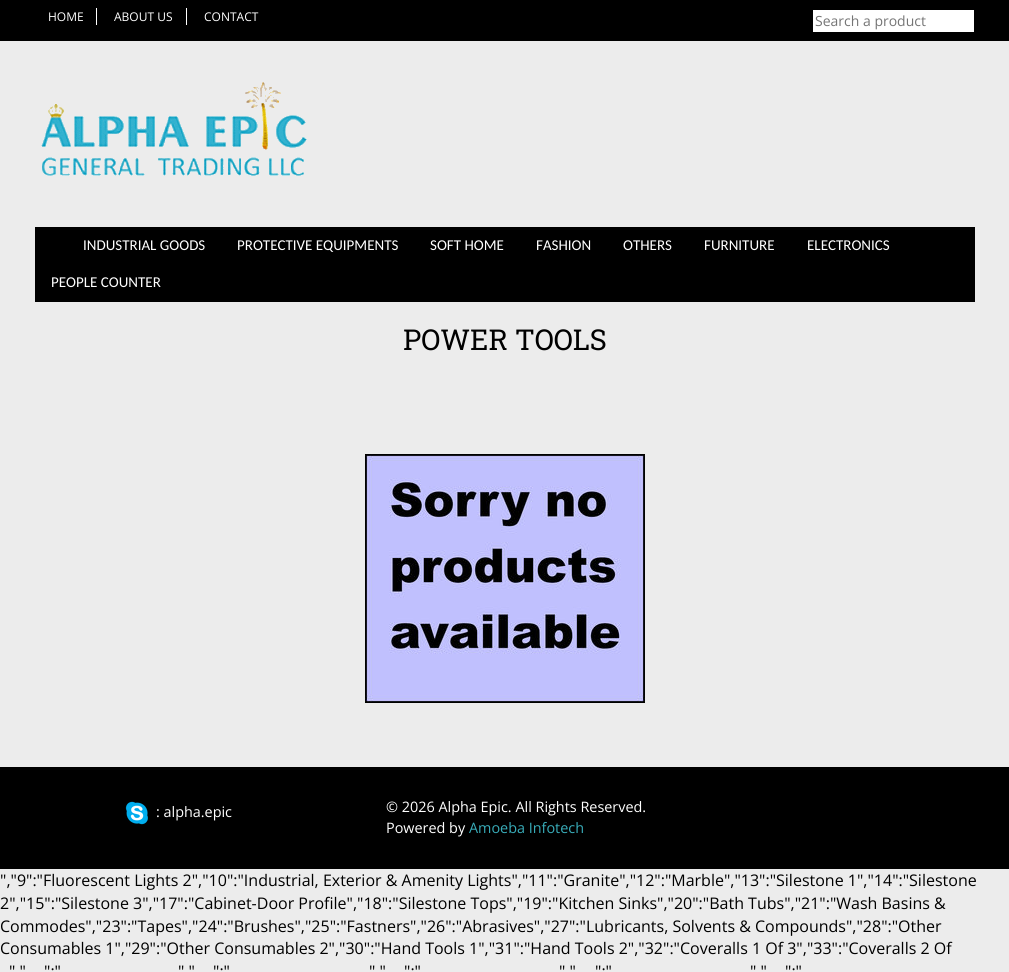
#include <cairo.h>
#include <math.h>
#include <stddef.h>


static void picture(cairo_t *cr, const char *path, double x, double y, double w, double h) {
    cairo_surface_t *image = cairo_image_surface_create_from_png(path);
    cairo_save(cr);
    cairo_set_source_surface(cr, image, x, y);
    cairo_rectangle(cr, x, y, w, h);
    cairo_fill(cr);
    cairo_restore(cr);
    cairo_surface_destroy(image);
}

int main(void) {
    cairo_surface_t *surface = cairo_image_surface_create(CAIRO_FORMAT_RGB24, 1009, 972);
    cairo_t *cr = cairo_create(surface);
    cairo_font_options_t *options = cairo_font_options_create();
    cairo_font_options_set_hint_metrics(options, CAIRO_HINT_METRICS_OFF);
    cairo_font_options_set_hint_style(options, CAIRO_HINT_STYLE_NONE);
    cairo_set_font_options(cr, options);
    cairo_set_miter_limit(cr, 4);
    cairo_set_source_rgb(cr, 0.922, 0.922, 0.922);
    cairo_paint(cr);
    cairo_set_source_rgb(cr, 0, 0, 0);
    cairo_rectangle(cr, 0, 0, 1009, 41);
    cairo_fill(cr);
    cairo_set_source_rgb(cr, 1, 1, 1);
    cairo_rectangle(cr, 96, 8, 1, 17);
    cairo_fill(cr);
    cairo_select_font_face(cr, "Open Sans", CAIRO_FONT_SLANT_NORMAL, CAIRO_FONT_WEIGHT_NORMAL);
    cairo_set_font_size(cr, 12);
    cairo_move_to(cr, 48, 21);
    cairo_show_text(cr, "HOME");
    cairo_rectangle(cr, 186, 8, 1, 17);
    cairo_fill(cr);
    cairo_move_to(cr, 114, 21);
    cairo_show_text(cr, "ABOUT US");
    cairo_move_to(cr, 204, 21);
    cairo_show_text(cr, "CONTACT");
    cairo_rectangle(cr, 813, 10, 161, 22);
    cairo_fill(cr);
    cairo_set_font_size(cr, 14);
    cairo_set_source_rgb(cr, 0.459, 0.459, 0.459);
    cairo_move_to(cr, 815, 26);
    cairo_show_text(cr, "Search a product");
    picture(cr, "img1.png", 41, 82, 266, 94);
    cairo_set_source_rgb(cr, 0, 0, 0);
    cairo_rectangle(cr, 35, 227, 940, 75);
    cairo_fill(cr);
    cairo_select_font_face(cr, "Carlito", CAIRO_FONT_SLANT_NORMAL, CAIRO_FONT_WEIGHT_NORMAL);
    cairo_set_font_size(cr, 15);
    cairo_set_source_rgb(cr, 1, 1, 1);
    cairo_move_to(cr, 83, 250);
    cairo_show_text(cr, "INDUSTRIAL GOODS");
    cairo_move_to(cr, 237, 250);
    cairo_show_text(cr, "PROTECTIVE EQUIPMENTS");
    cairo_move_to(cr, 430, 250);
    cairo_show_text(cr, "SOFT HOME");
    cairo_move_to(cr, 536, 250);
    cairo_show_text(cr, "FASHION");
    cairo_move_to(cr, 623, 250);
    cairo_show_text(cr, "OTHERS");
    cairo_move_to(cr, 704, 250);
    cairo_show_text(cr, "FURNITURE");
    cairo_move_to(cr, 807, 250);
    cairo_show_text(cr, "ELECTRONICS");
    cairo_move_to(cr, 51, 287);
    cairo_show_text(cr, "PEOPLE COUNTER");
    cairo_select_font_face(cr, "Roboto Slab", CAIRO_FONT_SLANT_NORMAL, CAIRO_FONT_WEIGHT_NORMAL);
    cairo_set_font_size(cr, 28.75);
    cairo_set_source_rgb(cr, 0, 0, 0);
    cairo_move_to(cr, 403, 350);
    cairo_show_text(cr, "POWER TOOLS");
    picture(cr, "img2.png", 365, 454, 280, 249);
    cairo_rectangle(cr, 0, 767, 1009, 102);
    cairo_fill(cr);
    picture(cr, "img3.png", 125, 801, 23, 24);
    cairo_select_font_face(cr, "Open Sans", CAIRO_FONT_SLANT_NORMAL, CAIRO_FONT_WEIGHT_NORMAL);
    cairo_set_font_size(cr, 14.4);
    cairo_set_source_rgb(cr, 1, 1, 1);
    cairo_move_to(cr, 156, 817);
    cairo_show_text(cr, ": alpha.epic");
    cairo_move_to(cr, 386, 812);
    cairo_show_text(cr, "© 2026 Alpha Epic. All Rights Reserved.");
    cairo_move_to(cr, 386, 833);
    cairo_show_text(cr, "Powered by");
    cairo_set_source_rgb(cr, 0.22, 0.675, 0.725);
    cairo_move_to(cr, 469, 833);
    cairo_show_text(cr, "Amoeba Infotech");
    cairo_set_font_size(cr, 16);
    cairo_set_source_rgb(cr, 0, 0, 0);
    cairo_move_to(cr, 0, 886);
    cairo_show_text(cr, "\",\"9\":\"Fluorescent Lights 2\",\"10\":\"Industrial, Exterior & Amenity Lights\",\"11\":\"Granite\",\"12\":\"Marble\",\"13\":\"Silestone 1\",\"14\":\"Silestone");
    cairo_move_to(cr, 0, 909);
    cairo_show_text(cr, "2\",\"15\":\"Silestone 3\",\"17\":\"Cabinet-Door Profile\",\"18\":\"Silestone Tops\",\"19\":\"Kitchen Sinks\",\"20\":\"Bath Tubs\",\"21\":\"Wash Basins &");
    cairo_move_to(cr, 0, 932);
    cairo_show_text(cr, "Commodes\",\"23\":\"Tapes\",\"24\":\"Brushes\",\"25\":\"Fastners\",\"26\":\"Abrasives\",\"27\":\"Lubricants, Solvents & Compounds\",\"28\":\"Other");
    cairo_move_to(cr, 0, 954);
    cairo_show_text(cr, "Consumables 1\",\"29\":\"Other Consumables 2\",\"30\":\"Hand Tools 1\",\"31\":\"Hand Tools 2\",\"32\":\"Coveralls 1 Of 3\",\"33\":\"Coveralls 2 Of");
    cairo_move_to(cr, 9, 977);
    cairo_show_text(cr, "\",\"");
    cairo_move_to(cr, 44, 977);
    cairo_show_text(cr, "\":\"");
    cairo_move_to(cr, 178, 977);
    cairo_show_text(cr, "\",\"");
    cairo_move_to(cr, 213, 977);
    cairo_show_text(cr, "\":\"");
    cairo_move_to(cr, 369, 977);
    cairo_show_text(cr, "\",\"");
    cairo_move_to(cr, 404, 977);
    cairo_show_text(cr, "\":\"");
    cairo_move_to(cr, 559, 977);
    cairo_show_text(cr, "\",\"");
    cairo_move_to(cr, 595, 977);
    cairo_show_text(cr, "\":\"");
    cairo_move_to(cr, 750, 977);
    cairo_show_text(cr, "\",\"");
    cairo_move_to(cr, 785, 977);
    cairo_show_text(cr, "\":\"");
    cairo_surface_write_to_png(surface, "page.png");
    cairo_font_options_destroy(options);
    cairo_destroy(cr);
    cairo_surface_destroy(surface);
    return 0;
}
